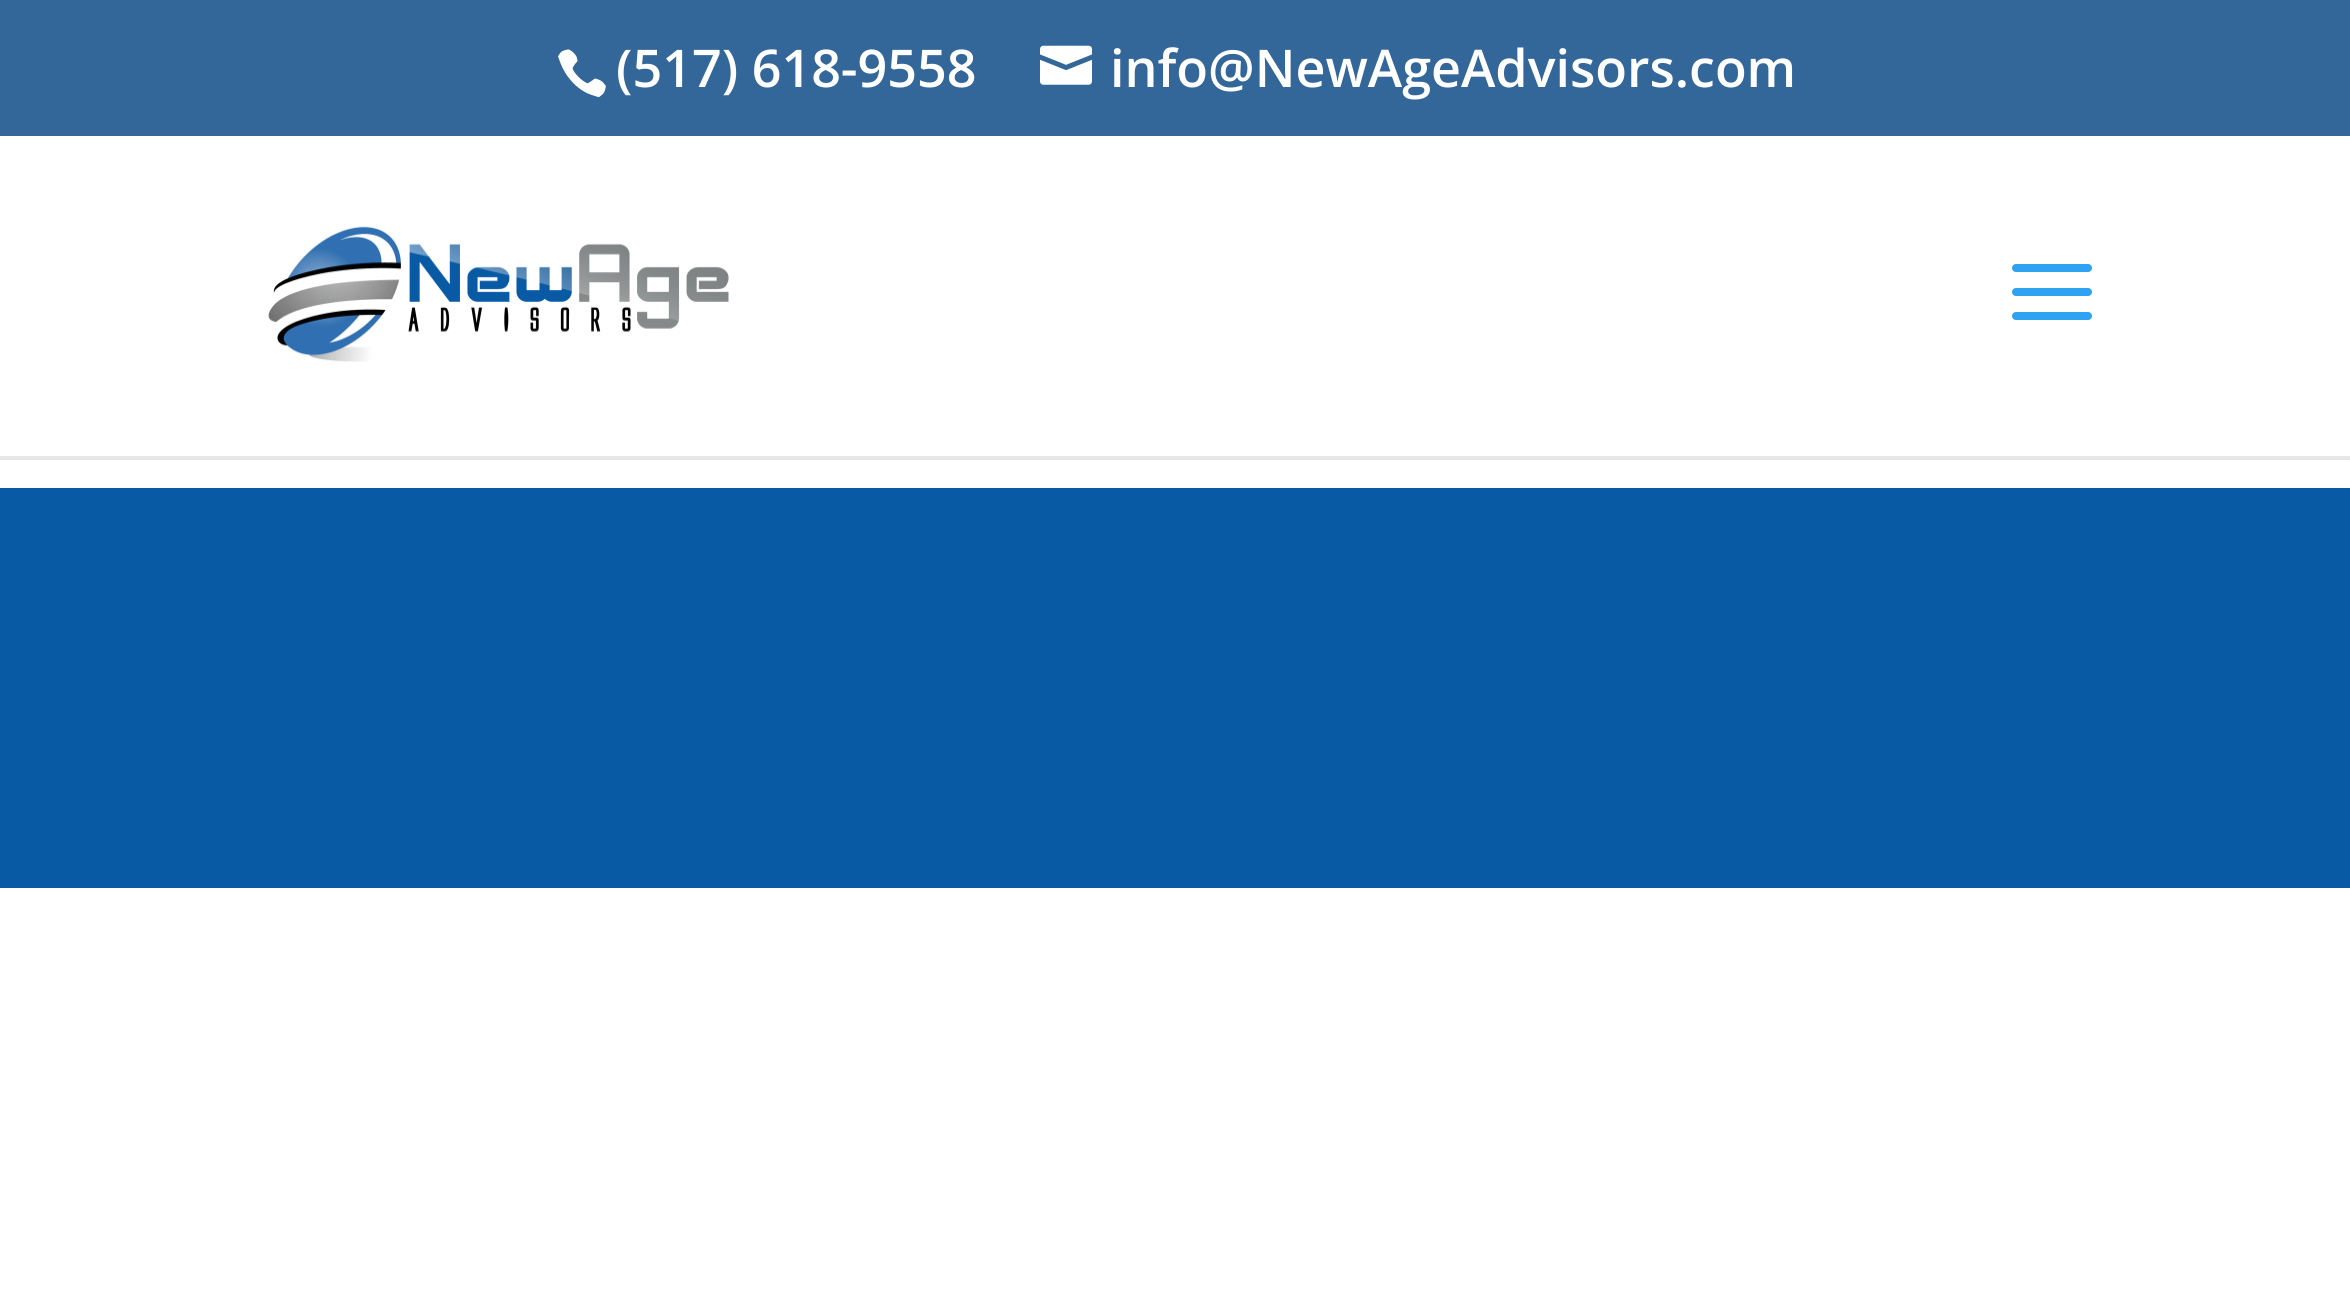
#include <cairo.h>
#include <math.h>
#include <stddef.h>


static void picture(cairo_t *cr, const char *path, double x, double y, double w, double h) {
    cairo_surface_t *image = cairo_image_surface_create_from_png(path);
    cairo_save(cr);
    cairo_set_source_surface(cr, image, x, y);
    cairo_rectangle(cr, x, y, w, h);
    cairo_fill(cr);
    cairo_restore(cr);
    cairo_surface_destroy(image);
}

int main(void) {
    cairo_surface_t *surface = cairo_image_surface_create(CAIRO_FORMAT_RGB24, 2350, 1304);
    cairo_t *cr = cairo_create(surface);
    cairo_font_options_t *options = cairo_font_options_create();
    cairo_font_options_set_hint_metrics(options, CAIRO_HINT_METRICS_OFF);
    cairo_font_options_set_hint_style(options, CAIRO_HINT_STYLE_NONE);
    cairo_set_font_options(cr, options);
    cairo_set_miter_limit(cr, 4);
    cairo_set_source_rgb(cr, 1, 1, 1);
    cairo_paint(cr);
    cairo_set_source_rgb(cr, 0.2, 0.4, 0.6);
    cairo_rectangle(cr, 0, 0, 2350, 136);
    cairo_fill(cr);
    picture(cr, "img1.png", 558, 49, 48, 49);
    cairo_select_font_face(cr, "Open Sans SemiBold", CAIRO_FONT_SLANT_NORMAL, CAIRO_FONT_WEIGHT_NORMAL);
    cairo_set_font_size(cr, 52);
    cairo_set_source_rgb(cr, 1, 1, 1);
    cairo_move_to(cr, 616, 87);
    cairo_show_text(cr, "(517) 618-9558");
    picture(cr, "img2.png", 1040, 45, 52, 40);
    cairo_move_to(cr, 1110, 87);
    cairo_show_text(cr, "info@NewAgeAdvisors.com");
    cairo_set_source_rgb(cr, 0.902, 0.902, 0.902);
    cairo_rectangle(cr, 0, 456, 2350, 4);
    cairo_fill(cr);
    picture(cr, "img3.png", 268, 226, 461, 136);
    picture(cr, "img4.png", 2012, 264, 80, 56);
    cairo_set_source_rgb(cr, 0.035, 0.353, 0.647);
    cairo_rectangle(cr, 0, 488, 2350, 400);
    cairo_fill(cr);
    cairo_surface_write_to_png(surface, "page.png");
    cairo_font_options_destroy(options);
    cairo_destroy(cr);
    cairo_surface_destroy(surface);
    return 0;
}
